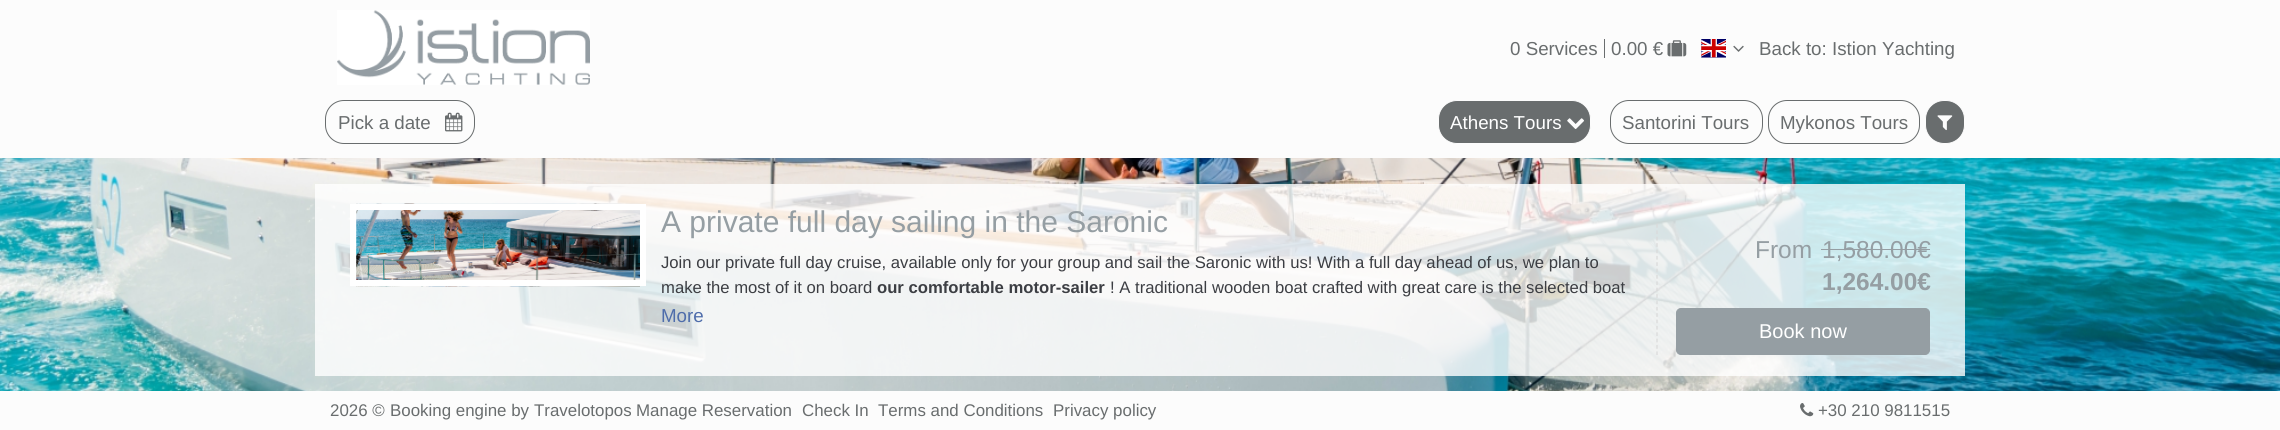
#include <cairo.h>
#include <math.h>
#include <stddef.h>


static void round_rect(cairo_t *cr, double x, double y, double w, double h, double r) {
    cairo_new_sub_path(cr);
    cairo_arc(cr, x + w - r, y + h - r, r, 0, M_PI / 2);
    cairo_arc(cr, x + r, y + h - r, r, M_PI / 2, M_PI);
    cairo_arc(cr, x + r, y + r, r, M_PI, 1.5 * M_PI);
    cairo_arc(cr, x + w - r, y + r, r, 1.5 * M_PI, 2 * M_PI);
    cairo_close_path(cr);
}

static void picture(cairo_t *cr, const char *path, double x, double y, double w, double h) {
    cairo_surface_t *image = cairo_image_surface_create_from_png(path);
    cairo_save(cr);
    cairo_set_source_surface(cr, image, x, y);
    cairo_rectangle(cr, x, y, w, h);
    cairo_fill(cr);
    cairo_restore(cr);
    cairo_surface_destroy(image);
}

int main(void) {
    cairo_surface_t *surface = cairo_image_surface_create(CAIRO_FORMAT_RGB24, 2280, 430);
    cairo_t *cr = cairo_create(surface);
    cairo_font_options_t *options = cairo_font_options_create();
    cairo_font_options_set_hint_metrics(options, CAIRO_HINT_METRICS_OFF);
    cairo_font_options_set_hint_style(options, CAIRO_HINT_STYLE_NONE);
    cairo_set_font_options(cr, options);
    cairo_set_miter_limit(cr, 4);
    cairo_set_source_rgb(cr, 1, 1, 1);
    cairo_paint(cr);
    cairo_set_source_rgb(cr, 0.988, 0.988, 0.988);
    cairo_rectangle(cr, 0, 0, 2280, 158);
    cairo_fill(cr);
    picture(cr, "img1.png", 337, 10, 253, 75);
    cairo_select_font_face(cr, "Liberation Sans", CAIRO_FONT_SLANT_NORMAL, CAIRO_FONT_WEIGHT_NORMAL);
    cairo_set_font_size(cr, 18.75);
    cairo_set_source_rgb(cr, 0.412, 0.427, 0.431);
    cairo_move_to(cr, 1510, 55);
    cairo_show_text(cr, "0 Services");
    cairo_rectangle(cr, 1604, 39, 1, 19);
    cairo_fill(cr);
    cairo_move_to(cr, 1611, 55);
    cairo_show_text(cr, "0.00 €");
    picture(cr, "img2.png", 1667, 40, 20, 17);
    picture(cr, "img3.png", 1701, 39, 25, 19);
    picture(cr, "img4.png", 1733, 45, 11, 7);
    cairo_move_to(cr, 1759, 55);
    cairo_show_text(cr, "Back to: Istion Yachting");
    round_rect(cr, 325.5, 100.5, 149, 43, 18.5);
    cairo_set_line_width(cr, 1);
    cairo_stroke(cr);
    cairo_move_to(cr, 338, 129);
    cairo_show_text(cr, "Pick a date");
    picture(cr, "img5.png", 445, 112, 18, 20);
    round_rect(cr, 1438.5, 100.5, 152, 43, 18.5);
    cairo_fill_preserve(cr);
    cairo_set_source_rgb(cr, 0.988, 0.988, 0.988);
    cairo_stroke(cr);
    cairo_set_source_rgb(cr, 1, 1, 1);
    cairo_move_to(cr, 1450, 129);
    cairo_show_text(cr, "Athens Tours");
    picture(cr, "img6.png", 1567, 118, 17, 11);
    round_rect(cr, 1610.5, 100.5, 152, 43, 18.5);
    cairo_set_source_rgb(cr, 0.412, 0.427, 0.431);
    cairo_stroke(cr);
    cairo_move_to(cr, 1622, 129);
    cairo_show_text(cr, "Santorini Tours");
    round_rect(cr, 1768.5, 100.5, 151, 43, 18.5);
    cairo_stroke(cr);
    cairo_move_to(cr, 1780, 129);
    cairo_show_text(cr, "Mykonos Tours");
    round_rect(cr, 1925.5, 100.5, 39, 43, 18.5);
    cairo_fill_preserve(cr);
    cairo_set_source_rgb(cr, 0.988, 0.988, 0.988);
    cairo_stroke(cr);
    picture(cr, "img7.png", 1937, 115, 16, 16);
    picture(cr, "img8.png", 0, 158, 2280, 233);
    cairo_set_source_rgba(cr, 1, 1, 1, 0.8);
    cairo_rectangle(cr, 315, 184, 1650, 192);
    cairo_fill(cr);
    picture(cr, "img9.png", 356, 203, 284, 84);
    cairo_rectangle(cr, 353, 207, 290, 76);
    cairo_set_source_rgb(cr, 1, 1, 1);
    cairo_set_line_width(cr, 6);
    cairo_stroke(cr);
    cairo_set_font_size(cr, 30);
    cairo_set_source_rgb(cr, 0.584, 0.62, 0.639);
    cairo_move_to(cr, 661, 232);
    cairo_show_text(cr, "A private full day sailing in the Saronic");
    cairo_set_font_size(cr, 16.67);
    cairo_set_source_rgb(cr, 0.235, 0.243, 0.263);
    cairo_move_to(cr, 661, 268);
    cairo_show_text(cr, "Join our private full day cruise, available only for your group and sail the Saronic with us! With a full day ahead of us, we plan to");
    cairo_move_to(cr, 661, 293);
    cairo_show_text(cr, "make the most of it on board");
    cairo_select_font_face(cr, "Liberation Sans", CAIRO_FONT_SLANT_NORMAL, CAIRO_FONT_WEIGHT_BOLD);
    cairo_move_to(cr, 877, 293);
    cairo_show_text(cr, "our comfortable motor-sailer");
    cairo_select_font_face(cr, "Liberation Sans", CAIRO_FONT_SLANT_NORMAL, CAIRO_FONT_WEIGHT_NORMAL);
    cairo_move_to(cr, 1110, 293);
    cairo_show_text(cr, "! A traditional wooden boat crafted with great care is the selected boat");
    cairo_set_font_size(cr, 18.75);
    cairo_set_source_rgb(cr, 0.31, 0.427, 0.671);
    cairo_move_to(cr, 661, 322);
    cairo_show_text(cr, "More");
    cairo_new_path(cr);
    cairo_move_to(cr, 1657, 224);
    cairo_line_to(cr, 1657, 355);
    cairo_set_source_rgb(cr, 0.851, 0.851, 0.851);
    cairo_set_line_width(cr, 1.2);
    cairo_set_dash(cr, (double[]){3.75, 2.62}, 2, 0);
    cairo_stroke(cr);
    cairo_set_font_size(cr, 24.5);
    cairo_set_source_rgb(cr, 0.584, 0.62, 0.639);
    cairo_move_to(cr, 1755, 258);
    cairo_show_text(cr, "From");
    cairo_move_to(cr, 1822, 258);
    cairo_show_text(cr, "1,580.00€");
    cairo_rectangle(cr, 1821, 249, 109, 1);
    cairo_fill(cr);
    cairo_select_font_face(cr, "Liberation Sans", CAIRO_FONT_SLANT_NORMAL, CAIRO_FONT_WEIGHT_BOLD);
    cairo_move_to(cr, 1822, 290);
    cairo_show_text(cr, "1,264.00€");
    round_rect(cr, 1676.5, 308.5, 253, 46, 4.5);
    cairo_fill_preserve(cr);
    cairo_set_line_width(cr, 1);
    cairo_set_dash(cr, NULL, 0, 0);
    cairo_stroke(cr);
    cairo_select_font_face(cr, "Liberation Sans", CAIRO_FONT_SLANT_NORMAL, CAIRO_FONT_WEIGHT_NORMAL);
    cairo_set_font_size(cr, 20);
    cairo_set_source_rgb(cr, 1, 1, 1);
    cairo_move_to(cr, 1759, 338);
    cairo_show_text(cr, "Book now");
    cairo_set_source_rgb(cr, 0.988, 0.988, 0.988);
    cairo_rectangle(cr, 0, 391, 2280, 39);
    cairo_fill(cr);
    cairo_set_font_size(cr, 16.9);
    cairo_set_source_rgb(cr, 0.412, 0.427, 0.431);
    cairo_move_to(cr, 330, 416);
    cairo_show_text(cr, "2026 ©");
    cairo_move_to(cr, 390, 416);
    cairo_show_text(cr, "Booking engine by");
    cairo_move_to(cr, 534, 416);
    cairo_show_text(cr, "Travelotopos");
    cairo_move_to(cr, 636, 416);
    cairo_show_text(cr, "Manage Reservation");
    cairo_move_to(cr, 802, 416);
    cairo_show_text(cr, "Check In");
    cairo_move_to(cr, 878, 416);
    cairo_show_text(cr, "Terms and Conditions");
    cairo_move_to(cr, 1053, 416);
    cairo_show_text(cr, "Privacy policy");
    picture(cr, "img10.png", 1800, 403, 14, 14);
    cairo_move_to(cr, 1818, 416);
    cairo_show_text(cr, "+30 210 9811515");
    cairo_surface_write_to_png(surface, "page.png");
    cairo_font_options_destroy(options);
    cairo_destroy(cr);
    cairo_surface_destroy(surface);
    return 0;
}
